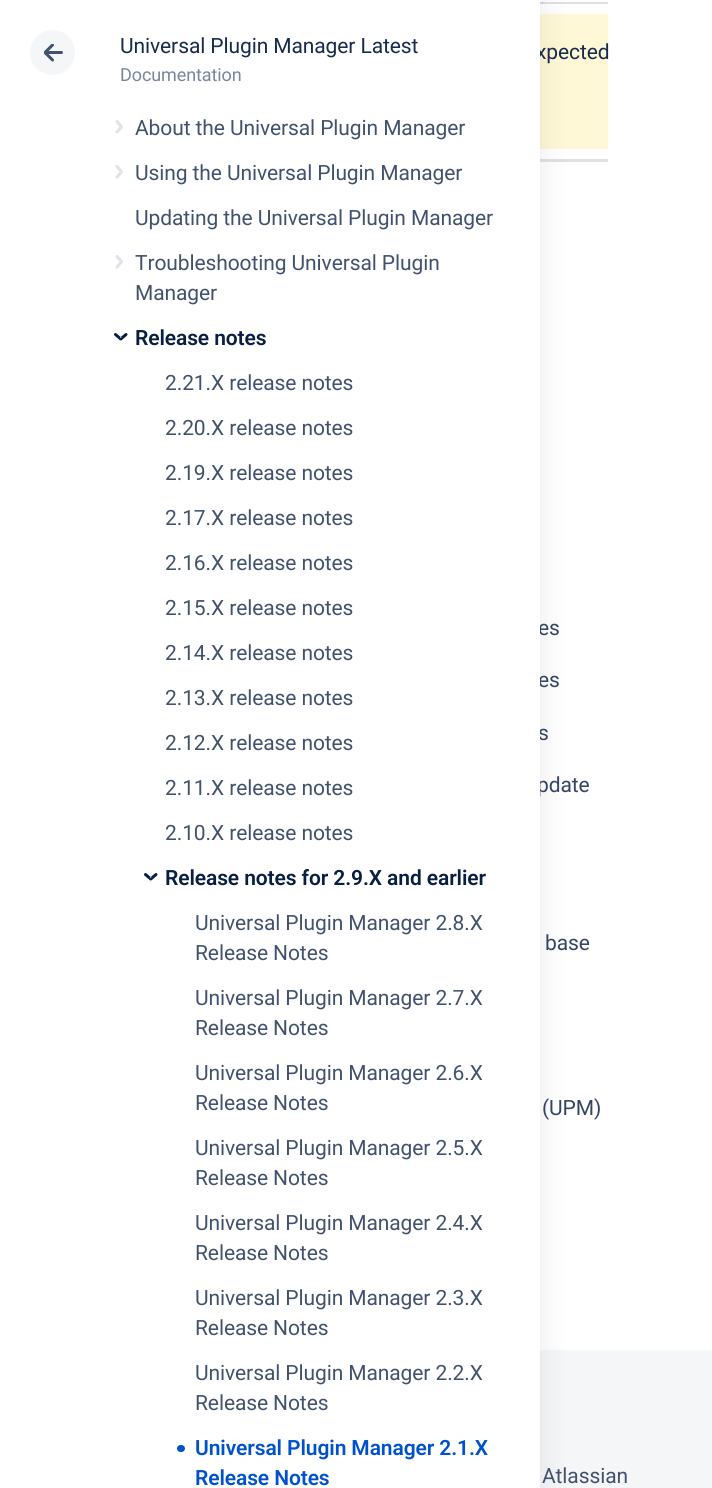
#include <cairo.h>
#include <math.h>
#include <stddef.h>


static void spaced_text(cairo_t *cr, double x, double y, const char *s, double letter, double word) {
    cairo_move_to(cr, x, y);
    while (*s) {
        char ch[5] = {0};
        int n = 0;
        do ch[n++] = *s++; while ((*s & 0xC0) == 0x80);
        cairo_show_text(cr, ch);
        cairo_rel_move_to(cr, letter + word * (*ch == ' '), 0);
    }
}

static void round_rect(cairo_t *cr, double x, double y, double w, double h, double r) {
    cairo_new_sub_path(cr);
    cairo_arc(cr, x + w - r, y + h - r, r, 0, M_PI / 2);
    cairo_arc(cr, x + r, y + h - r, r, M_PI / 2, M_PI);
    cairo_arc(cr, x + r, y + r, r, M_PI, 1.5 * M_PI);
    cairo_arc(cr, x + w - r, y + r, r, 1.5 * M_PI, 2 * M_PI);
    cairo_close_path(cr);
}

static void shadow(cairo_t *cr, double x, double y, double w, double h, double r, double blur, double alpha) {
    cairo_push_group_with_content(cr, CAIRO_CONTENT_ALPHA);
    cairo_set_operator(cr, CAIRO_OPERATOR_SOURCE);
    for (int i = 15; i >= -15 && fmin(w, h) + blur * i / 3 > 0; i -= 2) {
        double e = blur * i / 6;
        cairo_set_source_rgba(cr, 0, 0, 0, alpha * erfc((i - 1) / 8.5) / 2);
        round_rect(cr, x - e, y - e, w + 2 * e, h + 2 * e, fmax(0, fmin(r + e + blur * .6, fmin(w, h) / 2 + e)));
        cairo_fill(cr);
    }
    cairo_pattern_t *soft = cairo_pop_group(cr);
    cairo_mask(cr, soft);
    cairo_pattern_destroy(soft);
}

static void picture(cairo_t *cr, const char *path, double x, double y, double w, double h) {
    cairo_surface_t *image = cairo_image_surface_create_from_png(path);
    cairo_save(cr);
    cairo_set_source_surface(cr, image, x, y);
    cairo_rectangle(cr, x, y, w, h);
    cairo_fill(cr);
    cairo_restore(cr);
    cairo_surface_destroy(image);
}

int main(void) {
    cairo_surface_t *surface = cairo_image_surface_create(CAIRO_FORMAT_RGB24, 712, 1488);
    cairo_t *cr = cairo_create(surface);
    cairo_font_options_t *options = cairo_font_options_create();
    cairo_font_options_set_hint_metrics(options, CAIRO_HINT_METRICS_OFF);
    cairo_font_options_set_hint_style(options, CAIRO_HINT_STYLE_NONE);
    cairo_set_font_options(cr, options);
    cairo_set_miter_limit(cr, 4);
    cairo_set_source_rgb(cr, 1, 1, 1);
    cairo_paint(cr);
    cairo_set_source_rgb(cr, 0.867, 0.875, 0.898);
    cairo_rectangle(cr, 540, 2, 3, 2);
    cairo_fill(cr);
    cairo_set_source_rgb(cr, 0.875, 0.882, 0.902);
    cairo_rectangle(cr, 540, 159, 68, 3);
    cairo_fill(cr);
    cairo_set_source_rgb(cr, 0.867, 0.878, 0.898);
    cairo_rectangle(cr, 542, 2, 66, 2);
    cairo_fill(cr);
    cairo_set_source_rgb(cr, 0.749, 0.773, 0.808);
    cairo_rectangle(cr, 542, 2, 1, 2);
    cairo_fill(cr);
    cairo_set_source_rgb(cr, 1, 0.969, 0.839);
    cairo_rectangle(cr, 540, 14, 68, 135);
    cairo_fill(cr);
    cairo_set_source_rgb(cr, 0.957, 0.961, 0.969);
    cairo_rectangle(cr, 540, 1350, 172, 138);
    cairo_fill(cr);
    cairo_set_source_rgb(cr, 0.086, 0.086, 0.086);
    shadow(cr, 0, 0, 540, 1488, 0, 15, 0.1);
    cairo_select_font_face(cr, "Roboto", CAIRO_FONT_SLANT_NORMAL, CAIRO_FONT_WEIGHT_NORMAL);
    cairo_set_font_size(cr, 21);
    cairo_set_source_rgb(cr, 0.09, 0.169, 0.302);
    spaced_text(cr, 536, 59, "xpected", -0.1, 0);
    cairo_set_source_rgb(cr, 0.204, 0.271, 0.388);
    spaced_text(cr, 538, 635, "es", -0.1, 0);
    spaced_text(cr, 538, 687, "es", -0.1, 0);
    spaced_text(cr, 538, 740, "s", -0.1, 0);
    spaced_text(cr, 537, 792, "pdate", -0.1, 0);
    cairo_set_source_rgb(cr, 1, 1, 1);
    cairo_rectangle(cr, 0, 0, 540, 1488);
    cairo_fill(cr);
    cairo_set_source_rgb(cr, 0.957, 0.961, 0.969);
    cairo_arc(cr, 52.5, 52.5, 22.5, 0, 2 * M_PI);
    cairo_fill(cr);
    cairo_set_source_rgb(cr, 0.259, 0.322, 0.431);
    round_rect(cr, 45, 51, 18, 3, 1.5);
    cairo_fill(cr);
    cairo_save(cr);
    cairo_rectangle(cr, 44, 44, 19, 18);
    cairo_clip(cr);
    cairo_new_path(cr);
    cairo_move_to(cr, 52.5, 60);
    cairo_line_to(cr, 45, 52.5);
    cairo_line_to(cr, 52.5, 45);
    cairo_set_line_width(cr, 3);
    cairo_set_line_cap(cr, CAIRO_LINE_CAP_ROUND);
    cairo_set_line_join(cr, CAIRO_LINE_JOIN_ROUND);
    cairo_stroke(cr);
    cairo_restore(cr);
    cairo_set_source_rgb(cr, 0.09, 0.169, 0.302);
    spaced_text(cr, 120, 53, "Universal Plugin Manager Latest", -0.1, 0);
    cairo_set_font_size(cr, 18);
    cairo_set_source_rgb(cr, 0.478, 0.525, 0.604);
    spaced_text(cr, 120, 81, "Documentation", -0.1, 0);
    picture(cr, "img1.png", 115, 120, 8, 14);
    cairo_set_font_size(cr, 21);
    cairo_set_source_rgb(cr, 0.259, 0.322, 0.431);
    spaced_text(cr, 135, 135, "About the Universal Plugin Manager", -0.1, 0);
    picture(cr, "img1.png", 115, 165, 8, 14);
    spaced_text(cr, 135, 180, "Using the Universal Plugin Manager", -0.1, 0);
    spaced_text(cr, 135, 225, "Updating the Universal Plugin Manager", -0.1, 0);
    picture(cr, "img1.png", 115, 255, 8, 14);
    spaced_text(cr, 135, 270, "Troubleshooting Universal Plugin", -0.1, 0);
    spaced_text(cr, 135, 300, "Manager", -0.1, 0);
    picture(cr, "img2.png", 114, 333, 14, 8);
    cairo_select_font_face(cr, "Roboto SemiBold", CAIRO_FONT_SLANT_NORMAL, CAIRO_FONT_WEIGHT_NORMAL);
    cairo_set_source_rgb(cr, 0.035, 0.118, 0.259);
    spaced_text(cr, 135, 345, "Release notes", -0.1, 0);
    cairo_select_font_face(cr, "Roboto", CAIRO_FONT_SLANT_NORMAL, CAIRO_FONT_WEIGHT_NORMAL);
    cairo_set_source_rgb(cr, 0.259, 0.322, 0.431);
    spaced_text(cr, 165, 390, "2.21.X release notes", -0.1, 0);
    spaced_text(cr, 165, 435, "2.20.X release notes", -0.1, 0);
    spaced_text(cr, 165, 480, "2.19.X release notes", -0.1, 0);
    spaced_text(cr, 165, 525, "2.17.X release notes", -0.1, 0);
    spaced_text(cr, 165, 570, "2.16.X release notes", -0.1, 0);
    spaced_text(cr, 165, 615, "2.15.X release notes", -0.1, 0);
    spaced_text(cr, 165, 660, "2.14.X release notes", -0.1, 0);
    spaced_text(cr, 165, 705, "2.13.X release notes", -0.1, 0);
    spaced_text(cr, 165, 750, "2.12.X release notes", -0.1, 0);
    spaced_text(cr, 165, 795, "2.11.X release notes", -0.1, 0);
    spaced_text(cr, 165, 840, "2.10.X release notes", -0.1, 0);
    picture(cr, "img2.png", 144, 873, 14, 8);
    cairo_select_font_face(cr, "Roboto SemiBold", CAIRO_FONT_SLANT_NORMAL, CAIRO_FONT_WEIGHT_NORMAL);
    cairo_set_source_rgb(cr, 0.035, 0.118, 0.259);
    spaced_text(cr, 165, 885, "Release notes for 2.9.X and earlier", -0.1, 0);
    cairo_select_font_face(cr, "Roboto", CAIRO_FONT_SLANT_NORMAL, CAIRO_FONT_WEIGHT_NORMAL);
    cairo_set_source_rgb(cr, 0.259, 0.322, 0.431);
    spaced_text(cr, 195, 930, "Universal Plugin Manager 2.8.X", -0.1, 0);
    spaced_text(cr, 195, 960, "Release Notes", -0.1, 0);
    spaced_text(cr, 195, 1005, "Universal Plugin Manager 2.7.X", -0.1, 0);
    spaced_text(cr, 195, 1035, "Release Notes", -0.1, 0);
    spaced_text(cr, 195, 1080, "Universal Plugin Manager 2.6.X", -0.1, 0);
    spaced_text(cr, 195, 1110, "Release Notes", -0.1, 0);
    spaced_text(cr, 195, 1155, "Universal Plugin Manager 2.5.X", -0.1, 0);
    spaced_text(cr, 195, 1185, "Release Notes", -0.1, 0);
    spaced_text(cr, 195, 1230, "Universal Plugin Manager 2.4.X", -0.1, 0);
    spaced_text(cr, 195, 1260, "Release Notes", -0.1, 0);
    spaced_text(cr, 195, 1305, "Universal Plugin Manager 2.3.X", -0.1, 0);
    spaced_text(cr, 195, 1335, "Release Notes", -0.1, 0);
    spaced_text(cr, 195, 1380, "Universal Plugin Manager 2.2.X", -0.1, 0);
    spaced_text(cr, 195, 1410, "Release Notes", -0.1, 0);
    cairo_set_source_rgb(cr, 0, 0.322, 0.8);
    round_rect(cr, 177, 1445, 8, 7, 3.5);
    cairo_fill(cr);
    cairo_select_font_face(cr, "Roboto SemiBold", CAIRO_FONT_SLANT_NORMAL, CAIRO_FONT_WEIGHT_NORMAL);
    spaced_text(cr, 195, 1455, "Universal Plugin Manager 2.1.X", -0.1, 0);
    spaced_text(cr, 195, 1485, "Release Notes", -0.1, 0);
    cairo_select_font_face(cr, "Roboto", CAIRO_FONT_SLANT_NORMAL, CAIRO_FONT_WEIGHT_NORMAL);
    cairo_set_source_rgb(cr, 0.204, 0.271, 0.388);
    spaced_text(cr, 545, 950, "base", -0.1, 0);
    spaced_text(cr, 542, 1115, "(UPM)", -0.1, 0);
    cairo_set_source_rgb(cr, 0.259, 0.322, 0.431);
    spaced_text(cr, 542, 1483, "Atlassian", -0.1, 0);
    cairo_surface_write_to_png(surface, "page.png");
    cairo_font_options_destroy(options);
    cairo_destroy(cr);
    cairo_surface_destroy(surface);
    return 0;
}
